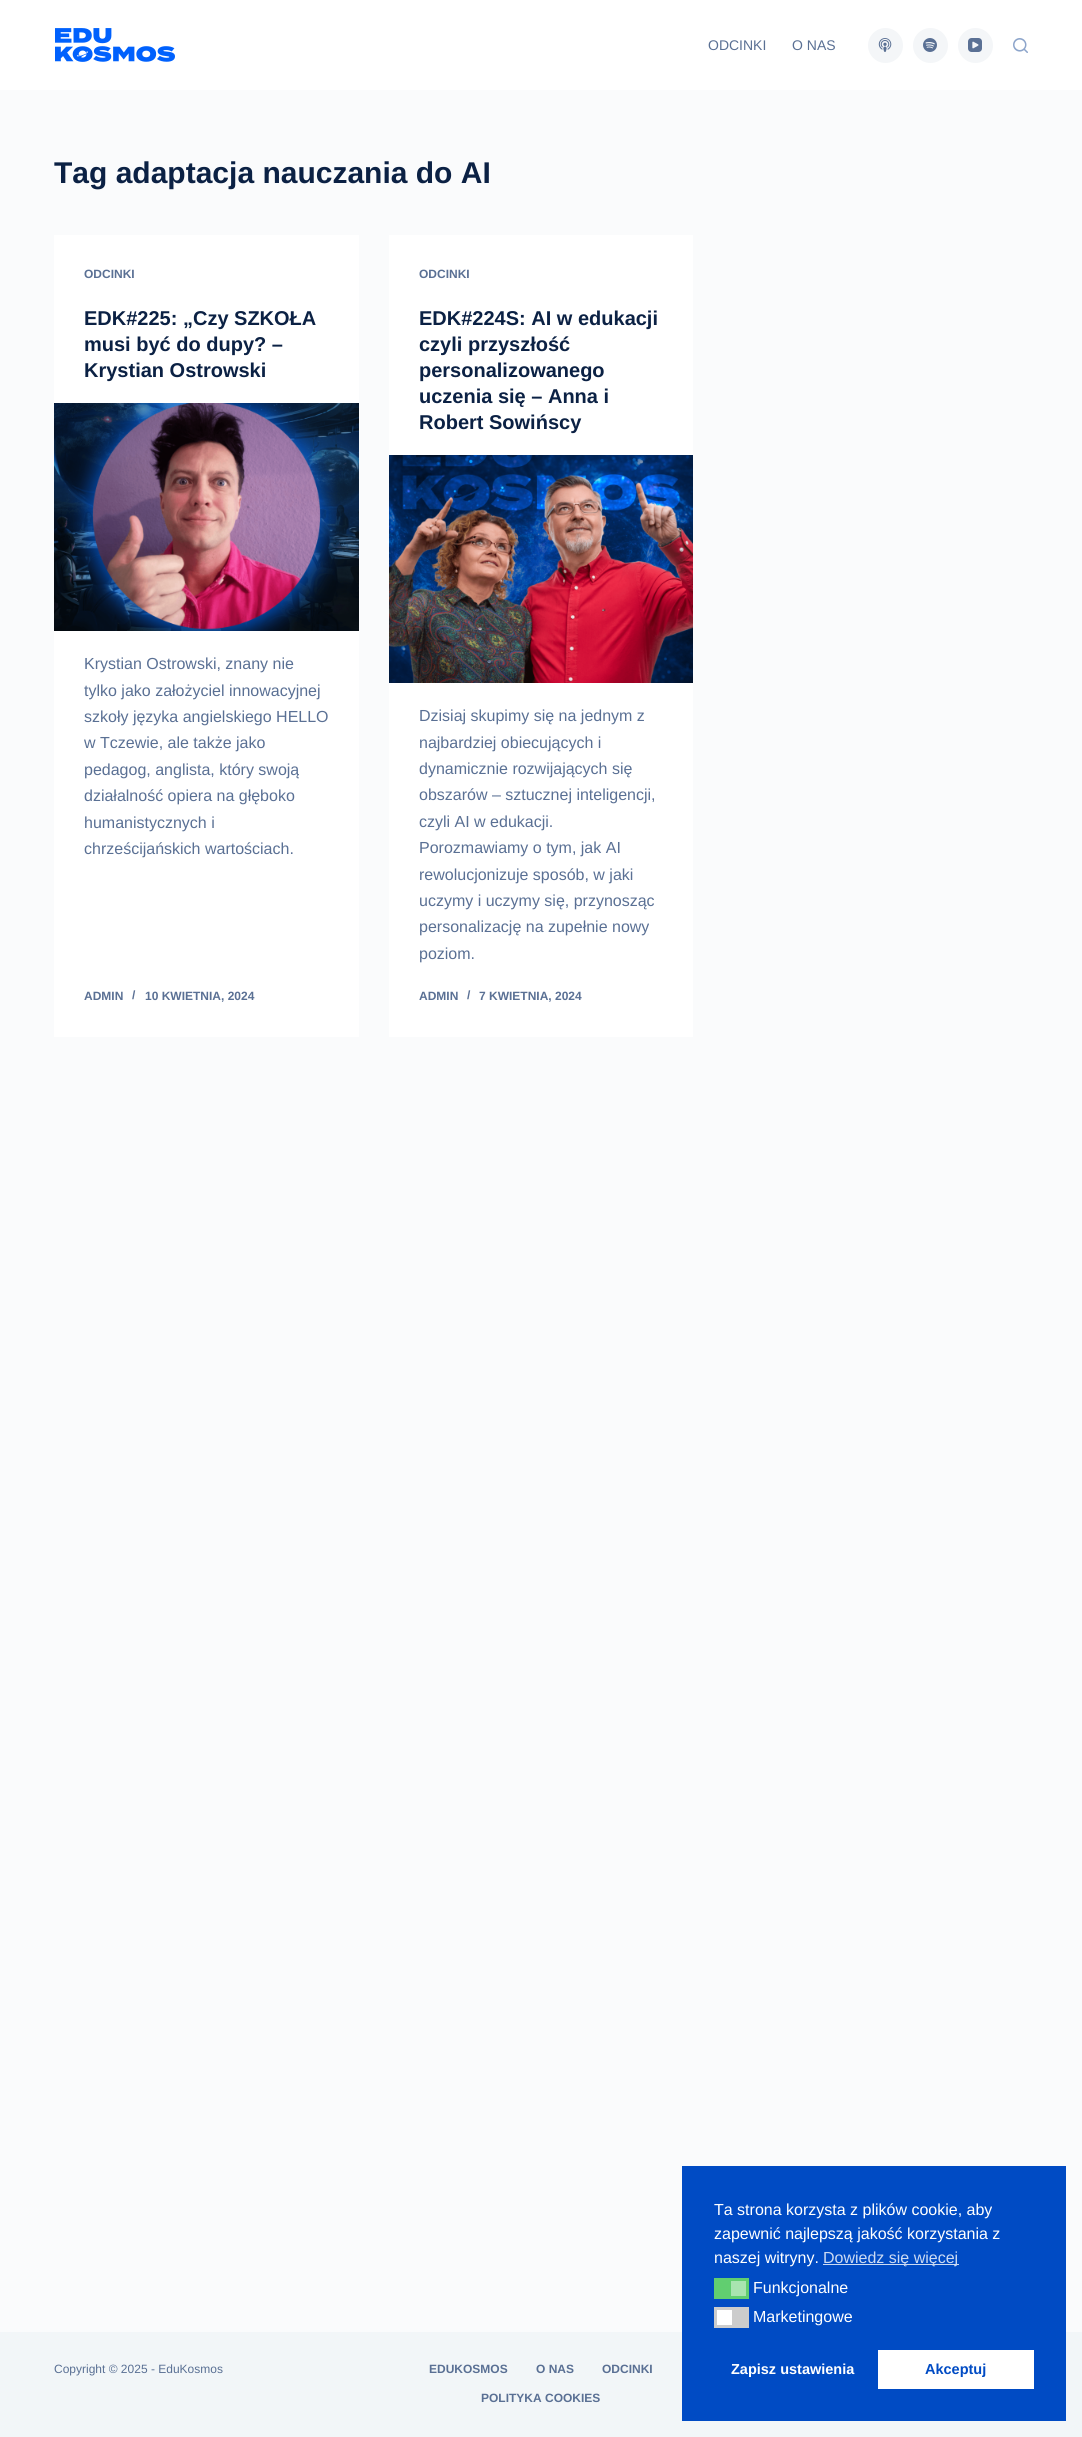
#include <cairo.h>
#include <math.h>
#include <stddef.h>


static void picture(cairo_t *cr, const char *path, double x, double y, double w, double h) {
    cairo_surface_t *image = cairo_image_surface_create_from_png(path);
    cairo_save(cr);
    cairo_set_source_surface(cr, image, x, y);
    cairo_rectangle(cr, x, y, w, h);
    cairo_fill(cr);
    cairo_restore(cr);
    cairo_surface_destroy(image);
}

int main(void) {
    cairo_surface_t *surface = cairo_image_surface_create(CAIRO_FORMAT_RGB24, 1082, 2437);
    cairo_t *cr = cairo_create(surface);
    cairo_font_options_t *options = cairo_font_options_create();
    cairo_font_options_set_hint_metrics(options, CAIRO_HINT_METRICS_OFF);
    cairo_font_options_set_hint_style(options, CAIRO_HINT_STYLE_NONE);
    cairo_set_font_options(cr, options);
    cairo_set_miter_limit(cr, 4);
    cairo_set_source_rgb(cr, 0.98, 0.984, 0.988);
    cairo_paint(cr);
    cairo_set_source_rgb(cr, 1, 1, 1);
    cairo_rectangle(cr, 0, 0, 1082, 90);
    cairo_fill(cr);
    picture(cr, "img1.png", 55, 28, 120, 34);
    cairo_select_font_face(cr, "Liberation Sans", CAIRO_FONT_SLANT_NORMAL, CAIRO_FONT_WEIGHT_NORMAL);
    cairo_set_font_size(cr, 14);
    cairo_set_source_rgb(cr, 0.353, 0.439, 0.58);
    cairo_move_to(cr, 708, 50);
    cairo_show_text(cr, "ODCINKI");
    cairo_move_to(cr, 792, 50);
    cairo_show_text(cr, "O NAS");
    cairo_set_source_rgb(cr, 0.957, 0.961, 0.969);
    cairo_new_path(cr);
    cairo_arc(cr, 885.5, 45.5, 17.5, 0, 2 * M_PI);
    cairo_fill(cr);
    picture(cr, "img2.png", 878, 38, 14, 14);
    cairo_arc(cr, 930.5, 45.5, 17.5, 0, 2 * M_PI);
    cairo_fill(cr);
    picture(cr, "img3.png", 923, 38, 14, 14);
    cairo_arc(cr, 975.5, 45.5, 17.5, 0, 2 * M_PI);
    cairo_fill(cr);
    picture(cr, "img4.png", 968, 38, 14, 14);
    picture(cr, "img5.png", 1013, 38, 15, 15);
    cairo_select_font_face(cr, "Liberation Sans", CAIRO_FONT_SLANT_NORMAL, CAIRO_FONT_WEIGHT_BOLD);
    cairo_set_font_size(cr, 30);
    cairo_set_source_rgb(cr, 0.043, 0.129, 0.267);
    cairo_move_to(cr, 54, 183);
    cairo_show_text(cr, "Tag adaptacja nauczania do AI");
    cairo_set_source_rgb(cr, 1, 1, 1);
    cairo_rectangle(cr, 54, 235, 305, 802);
    cairo_fill(cr);
    cairo_set_font_size(cr, 12);
    cairo_set_source_rgb(cr, 0.353, 0.439, 0.58);
    cairo_move_to(cr, 84, 278);
    cairo_show_text(cr, "ODCINKI");
    cairo_set_font_size(cr, 20);
    cairo_set_source_rgb(cr, 0.043, 0.129, 0.267);
    cairo_move_to(cr, 84, 325);
    cairo_show_text(cr, "EDK#225: „Czy SZKOŁA");
    cairo_move_to(cr, 84, 351);
    cairo_show_text(cr, "musi być do dupy? –");
    cairo_move_to(cr, 84, 377);
    cairo_show_text(cr, "Krystian Ostrowski");
    picture(cr, "img6.png", 54, 403, 305, 228);
    cairo_select_font_face(cr, "Liberation Sans", CAIRO_FONT_SLANT_NORMAL, CAIRO_FONT_WEIGHT_NORMAL);
    cairo_set_font_size(cr, 16);
    cairo_set_source_rgb(cr, 0.353, 0.439, 0.58);
    cairo_move_to(cr, 84, 669);
    cairo_show_text(cr, "Krystian Ostrowski, znany nie");
    cairo_move_to(cr, 84, 696);
    cairo_show_text(cr, "tylko jako założyciel innowacyjnej");
    cairo_move_to(cr, 84, 722);
    cairo_show_text(cr, "szkoły języka angielskiego HELLO");
    cairo_move_to(cr, 84, 748);
    cairo_show_text(cr, "w Tczewie, ale także jako");
    cairo_move_to(cr, 84, 775);
    cairo_show_text(cr, "pedagog, anglista, który swoją");
    cairo_move_to(cr, 84, 801);
    cairo_show_text(cr, "działalność opiera na głęboko");
    cairo_move_to(cr, 84, 828);
    cairo_show_text(cr, "humanistycznych i");
    cairo_move_to(cr, 84, 854);
    cairo_show_text(cr, "chrześcijańskich wartościach.");
    cairo_select_font_face(cr, "Liberation Sans", CAIRO_FONT_SLANT_NORMAL, CAIRO_FONT_WEIGHT_BOLD);
    cairo_set_font_size(cr, 12);
    cairo_move_to(cr, 84, 1000);
    cairo_show_text(cr, "ADMIN");
    cairo_move_to(cr, 132, 999);
    cairo_show_text(cr, "/");
    cairo_move_to(cr, 145, 1000);
    cairo_show_text(cr, "10 KWIETNIA, 2024");
    cairo_set_source_rgb(cr, 1, 1, 1);
    cairo_rectangle(cr, 389, 235, 304, 802);
    cairo_fill(cr);
    cairo_set_source_rgb(cr, 0.353, 0.439, 0.58);
    cairo_move_to(cr, 419, 278);
    cairo_show_text(cr, "ODCINKI");
    cairo_set_font_size(cr, 20);
    cairo_set_source_rgb(cr, 0.043, 0.129, 0.267);
    cairo_move_to(cr, 419, 325);
    cairo_show_text(cr, "EDK#224S: AI w edukacji");
    cairo_move_to(cr, 419, 351);
    cairo_show_text(cr, "czyli przyszłość");
    cairo_move_to(cr, 419, 377);
    cairo_show_text(cr, "personalizowanego");
    cairo_move_to(cr, 419, 403);
    cairo_show_text(cr, "uczenia się – Anna i");
    cairo_move_to(cr, 419, 429);
    cairo_show_text(cr, "Robert Sowińscy");
    picture(cr, "img7.png", 389, 455, 304, 228);
    cairo_select_font_face(cr, "Liberation Sans", CAIRO_FONT_SLANT_NORMAL, CAIRO_FONT_WEIGHT_NORMAL);
    cairo_set_font_size(cr, 16);
    cairo_set_source_rgb(cr, 0.353, 0.439, 0.58);
    cairo_move_to(cr, 419, 721);
    cairo_show_text(cr, "Dzisiaj skupimy się na jednym z");
    cairo_move_to(cr, 419, 748);
    cairo_show_text(cr, "najbardziej obiecujących i");
    cairo_move_to(cr, 419, 774);
    cairo_show_text(cr, "dynamicznie rozwijających się");
    cairo_move_to(cr, 419, 800);
    cairo_show_text(cr, "obszarów – sztucznej inteligencji,");
    cairo_move_to(cr, 419, 827);
    cairo_show_text(cr, "czyli AI w edukacji.");
    cairo_move_to(cr, 419, 853);
    cairo_show_text(cr, "Porozmawiamy o tym, jak AI");
    cairo_move_to(cr, 419, 880);
    cairo_show_text(cr, "rewolucjonizuje sposób, w jaki");
    cairo_move_to(cr, 419, 906);
    cairo_show_text(cr, "uczymy i uczymy się, przynosząc");
    cairo_move_to(cr, 419, 932);
    cairo_show_text(cr, "personalizację na zupełnie nowy");
    cairo_move_to(cr, 419, 959);
    cairo_show_text(cr, "poziom.");
    cairo_select_font_face(cr, "Liberation Sans", CAIRO_FONT_SLANT_NORMAL, CAIRO_FONT_WEIGHT_BOLD);
    cairo_set_font_size(cr, 12);
    cairo_move_to(cr, 419, 1000);
    cairo_show_text(cr, "ADMIN");
    cairo_move_to(cr, 467, 999);
    cairo_show_text(cr, "/");
    cairo_move_to(cr, 479, 1000);
    cairo_show_text(cr, "7 KWIETNIA, 2024");
    cairo_set_source_rgb(cr, 0.949, 0.961, 0.969);
    cairo_rectangle(cr, 0, 2332, 1082, 105);
    cairo_fill(cr);
    cairo_select_font_face(cr, "Liberation Sans", CAIRO_FONT_SLANT_NORMAL, CAIRO_FONT_WEIGHT_NORMAL);
    cairo_set_source_rgb(cr, 0.353, 0.439, 0.58);
    cairo_move_to(cr, 54, 2373);
    cairo_show_text(cr, "Copyright © 2025 - EduKosmos");
    cairo_select_font_face(cr, "Liberation Sans", CAIRO_FONT_SLANT_NORMAL, CAIRO_FONT_WEIGHT_BOLD);
    cairo_move_to(cr, 429, 2373);
    cairo_show_text(cr, "EDUKOSMOS");
    cairo_move_to(cr, 536, 2373);
    cairo_show_text(cr, "O NAS");
    cairo_move_to(cr, 602, 2373);
    cairo_show_text(cr, "ODCINKI");
    cairo_move_to(cr, 481, 2402);
    cairo_show_text(cr, "POLITYKA COOKIES");
    cairo_set_source_rgb(cr, 0, 0.294, 0.769);
    cairo_rectangle(cr, 682, 2166, 384, 255);
    cairo_fill(cr);
    cairo_select_font_face(cr, "Liberation Sans", CAIRO_FONT_SLANT_NORMAL, CAIRO_FONT_WEIGHT_NORMAL);
    cairo_set_font_size(cr, 16);
    cairo_set_source_rgb(cr, 1, 1, 1);
    cairo_move_to(cr, 714, 2215);
    cairo_show_text(cr, "Ta strona korzysta z plików cookie, aby");
    cairo_move_to(cr, 714, 2239);
    cairo_show_text(cr, "zapewnić najlepszą jakość korzystania z");
    cairo_move_to(cr, 714, 2263);
    cairo_show_text(cr, "naszej witryny.");
    cairo_set_source_rgb(cr, 0.8, 0.859, 0.953);
    cairo_rectangle(cr, 823, 2264, 136, 1);
    cairo_fill(cr);
    cairo_move_to(cr, 823, 2263);
    cairo_show_text(cr, "Dowiedz się więcej");
    cairo_set_source_rgb(cr, 0.38, 0.808, 0.439);
    cairo_rectangle(cr, 714, 2278, 35, 21);
    cairo_fill(cr);
    cairo_set_source_rgb(cr, 0.659, 0.894, 0.69);
    cairo_rectangle(cr, 731, 2281, 15, 15);
    cairo_fill(cr);
    cairo_set_source_rgb(cr, 1, 1, 1);
    cairo_move_to(cr, 753, 2293);
    cairo_show_text(cr, "Funkcjonalne");
    cairo_set_source_rgb(cr, 0.8, 0.8, 0.8);
    cairo_rectangle(cr, 714, 2307, 35, 21);
    cairo_fill(cr);
    cairo_set_source_rgb(cr, 1, 1, 1);
    cairo_rectangle(cr, 717, 2310, 15, 15);
    cairo_fill(cr);
    cairo_move_to(cr, 753, 2322);
    cairo_show_text(cr, "Marketingowe");
    cairo_select_font_face(cr, "Liberation Sans", CAIRO_FONT_SLANT_NORMAL, CAIRO_FONT_WEIGHT_BOLD);
    cairo_set_font_size(cr, 14.5);
    cairo_move_to(cr, 731, 2374);
    cairo_show_text(cr, "Zapisz ustawienia");
    cairo_rectangle(cr, 878, 2350, 156, 39);
    cairo_fill(cr);
    cairo_set_source_rgb(cr, 0, 0.294, 0.769);
    cairo_move_to(cr, 925, 2374);
    cairo_show_text(cr, "Akceptuj");
    cairo_surface_write_to_png(surface, "page.png");
    cairo_font_options_destroy(options);
    cairo_destroy(cr);
    cairo_surface_destroy(surface);
    return 0;
}
